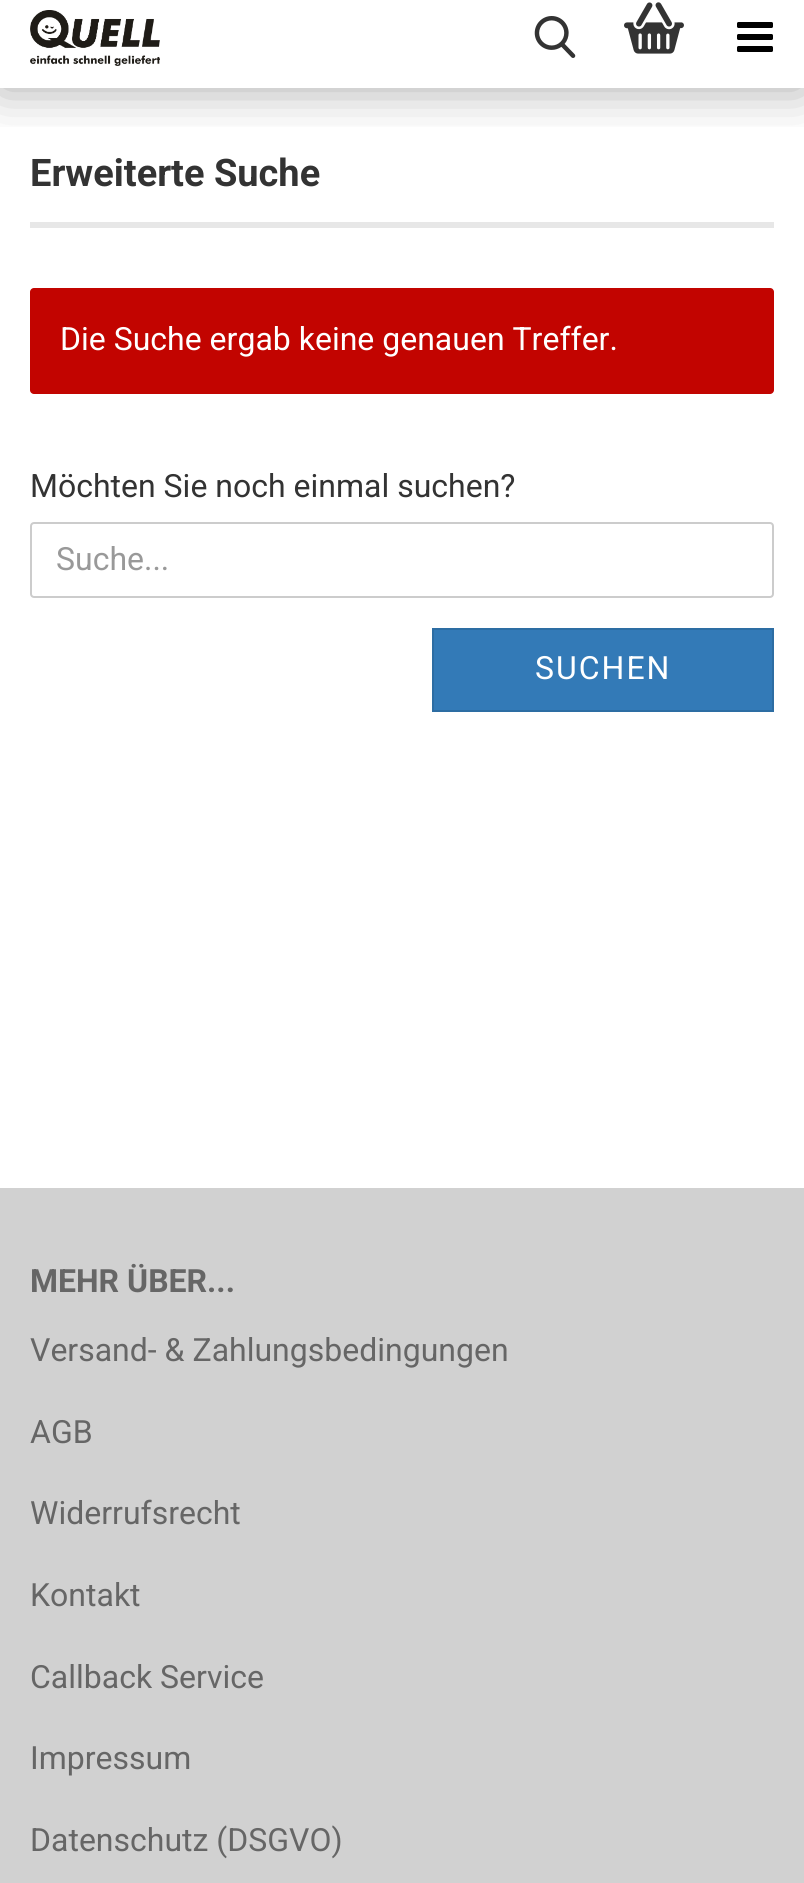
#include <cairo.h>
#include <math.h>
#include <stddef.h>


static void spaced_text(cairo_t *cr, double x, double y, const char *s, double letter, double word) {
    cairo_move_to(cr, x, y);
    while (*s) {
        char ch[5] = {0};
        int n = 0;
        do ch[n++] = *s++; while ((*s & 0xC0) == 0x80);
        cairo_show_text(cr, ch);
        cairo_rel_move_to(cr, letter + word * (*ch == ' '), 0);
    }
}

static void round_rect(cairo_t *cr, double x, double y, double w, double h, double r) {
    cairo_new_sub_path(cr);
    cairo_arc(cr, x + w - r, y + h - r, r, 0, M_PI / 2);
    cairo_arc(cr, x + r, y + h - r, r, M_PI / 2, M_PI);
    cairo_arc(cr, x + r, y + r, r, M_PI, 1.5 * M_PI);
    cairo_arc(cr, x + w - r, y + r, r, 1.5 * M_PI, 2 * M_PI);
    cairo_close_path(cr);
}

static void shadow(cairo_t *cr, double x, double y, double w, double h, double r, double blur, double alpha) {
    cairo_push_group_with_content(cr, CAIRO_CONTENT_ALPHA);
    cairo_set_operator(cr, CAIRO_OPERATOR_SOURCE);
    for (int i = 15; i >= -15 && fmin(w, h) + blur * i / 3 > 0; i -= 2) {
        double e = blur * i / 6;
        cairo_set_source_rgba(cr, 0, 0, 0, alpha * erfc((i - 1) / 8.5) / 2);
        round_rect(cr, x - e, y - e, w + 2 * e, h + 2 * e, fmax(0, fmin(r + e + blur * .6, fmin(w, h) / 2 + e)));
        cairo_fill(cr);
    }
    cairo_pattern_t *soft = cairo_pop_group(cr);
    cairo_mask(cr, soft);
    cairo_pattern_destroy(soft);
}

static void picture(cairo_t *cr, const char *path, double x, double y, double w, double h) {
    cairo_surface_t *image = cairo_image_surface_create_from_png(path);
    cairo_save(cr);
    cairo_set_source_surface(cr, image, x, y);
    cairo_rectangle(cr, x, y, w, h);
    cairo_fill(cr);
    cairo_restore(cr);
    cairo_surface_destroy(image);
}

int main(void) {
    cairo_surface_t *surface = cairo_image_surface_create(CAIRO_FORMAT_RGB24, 804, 1883);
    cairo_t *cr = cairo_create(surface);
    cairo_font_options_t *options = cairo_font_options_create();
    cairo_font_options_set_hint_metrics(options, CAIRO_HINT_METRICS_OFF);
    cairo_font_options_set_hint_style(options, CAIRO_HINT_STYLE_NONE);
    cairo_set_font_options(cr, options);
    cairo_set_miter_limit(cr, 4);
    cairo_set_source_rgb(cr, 1, 1, 1);
    cairo_paint(cr);
    cairo_save(cr);
    cairo_rectangle(cr, 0, 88, 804, 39);
    cairo_clip(cr);
    cairo_set_source_rgb(cr, 0, 0, 0);
    shadow(cr, 0, -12, 804, 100, 0, 25, 0.35);
    cairo_restore(cr);
    picture(cr, "img1.png", 30, 10, 130, 56);
    picture(cr, "img2.png", 534, 16, 42, 42);
    picture(cr, "img3.png", 624, 2, 60, 52);
    picture(cr, "img4.png", 737, 22, 36, 30);
    cairo_set_source_rgb(cr, 0.906, 0.906, 0.906);
    cairo_rectangle(cr, 30, 222, 744, 6);
    cairo_fill(cr);
    cairo_select_font_face(cr, "Roboto", CAIRO_FONT_SLANT_NORMAL, CAIRO_FONT_WEIGHT_BOLD);
    cairo_set_font_size(cr, 38);
    cairo_set_source_rgb(cr, 0.2, 0.2, 0.2);
    cairo_move_to(cr, 30, 186);
    cairo_show_text(cr, "Erweiterte Suche");
    cairo_set_source_rgb(cr, 0.761, 0.016, 0);
    round_rect(cr, 30, 288, 744, 106, 4);
    cairo_fill(cr);
    cairo_select_font_face(cr, "Roboto", CAIRO_FONT_SLANT_NORMAL, CAIRO_FONT_WEIGHT_NORMAL);
    cairo_set_font_size(cr, 32);
    cairo_set_source_rgb(cr, 1, 1, 1);
    cairo_move_to(cr, 60, 350);
    cairo_show_text(cr, "Die Suche ergab keine genauen Treffer.");
    cairo_set_source_rgb(cr, 0.2, 0.2, 0.2);
    cairo_move_to(cr, 30, 497);
    cairo_show_text(cr, "Möchten Sie noch einmal suchen?");
    round_rect(cr, 31, 523, 742, 74, 3);
    cairo_set_source_rgb(cr, 0.8, 0.8, 0.8);
    cairo_stroke(cr);
    cairo_set_source_rgb(cr, 0.6, 0.6, 0.6);
    cairo_move_to(cr, 56, 570);
    cairo_show_text(cr, "Suche...");
    cairo_set_source_rgb(cr, 0.2, 0.478, 0.718);
    cairo_rectangle(cr, 433, 629, 340, 82);
    cairo_fill_preserve(cr);
    cairo_set_source_rgb(cr, 0.176, 0.427, 0.639);
    cairo_stroke(cr);
    cairo_set_source_rgb(cr, 1, 1, 1);
    spaced_text(cr, 535, 679, "SUCHEN", 2, 0);
    cairo_set_source_rgb(cr, 0.82, 0.82, 0.82);
    cairo_rectangle(cr, 0, 1188, 804, 695);
    cairo_fill(cr);
    cairo_select_font_face(cr, "Roboto", CAIRO_FONT_SLANT_NORMAL, CAIRO_FONT_WEIGHT_BOLD);
    cairo_set_source_rgb(cr, 0.4, 0.4, 0.4);
    cairo_move_to(cr, 30, 1292);
    cairo_show_text(cr, "MEHR ÜBER...");
    cairo_select_font_face(cr, "Roboto", CAIRO_FONT_SLANT_NORMAL, CAIRO_FONT_WEIGHT_NORMAL);
    cairo_move_to(cr, 30, 1361);
    cairo_show_text(cr, "Versand- & Zahlungsbedingungen");
    cairo_move_to(cr, 30, 1443);
    cairo_show_text(cr, "AGB");
    cairo_move_to(cr, 30, 1524);
    cairo_show_text(cr, "Widerrufsrecht");
    cairo_move_to(cr, 30, 1606);
    cairo_show_text(cr, "Kontakt");
    cairo_move_to(cr, 30, 1688);
    cairo_show_text(cr, "Callback Service");
    cairo_move_to(cr, 30, 1769);
    cairo_show_text(cr, "Impressum");
    cairo_move_to(cr, 30, 1851);
    cairo_show_text(cr, "Datenschutz (DSGVO)");
    cairo_surface_write_to_png(surface, "page.png");
    cairo_font_options_destroy(options);
    cairo_destroy(cr);
    cairo_surface_destroy(surface);
    return 0;
}
